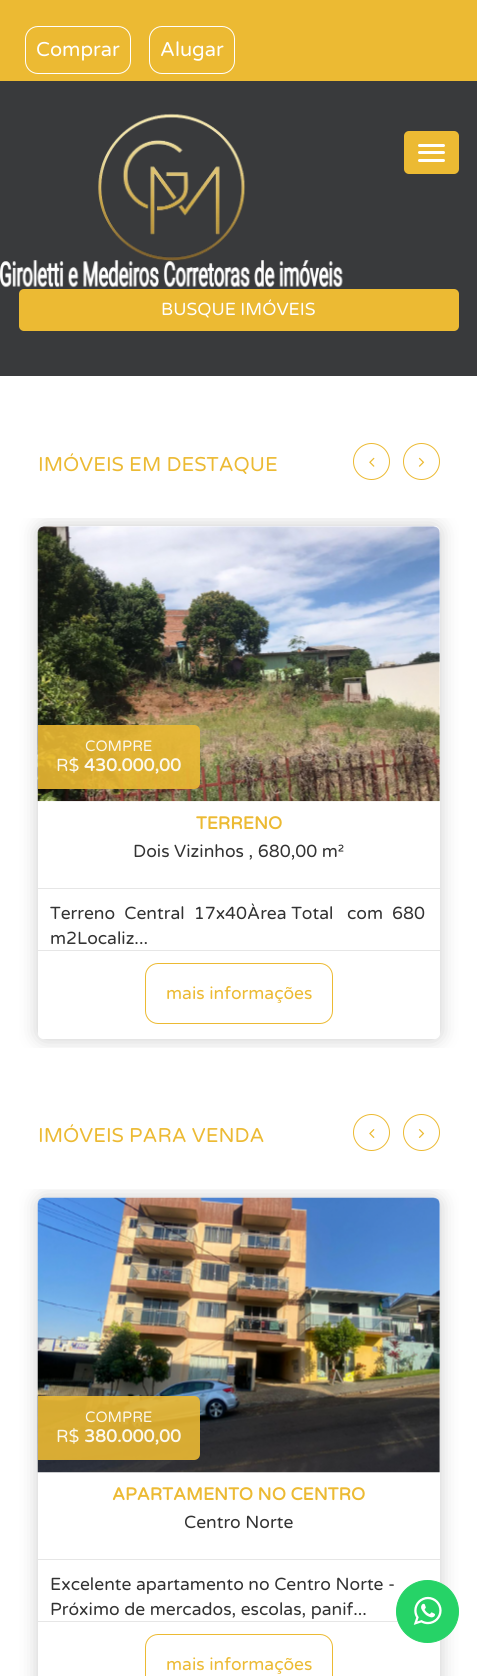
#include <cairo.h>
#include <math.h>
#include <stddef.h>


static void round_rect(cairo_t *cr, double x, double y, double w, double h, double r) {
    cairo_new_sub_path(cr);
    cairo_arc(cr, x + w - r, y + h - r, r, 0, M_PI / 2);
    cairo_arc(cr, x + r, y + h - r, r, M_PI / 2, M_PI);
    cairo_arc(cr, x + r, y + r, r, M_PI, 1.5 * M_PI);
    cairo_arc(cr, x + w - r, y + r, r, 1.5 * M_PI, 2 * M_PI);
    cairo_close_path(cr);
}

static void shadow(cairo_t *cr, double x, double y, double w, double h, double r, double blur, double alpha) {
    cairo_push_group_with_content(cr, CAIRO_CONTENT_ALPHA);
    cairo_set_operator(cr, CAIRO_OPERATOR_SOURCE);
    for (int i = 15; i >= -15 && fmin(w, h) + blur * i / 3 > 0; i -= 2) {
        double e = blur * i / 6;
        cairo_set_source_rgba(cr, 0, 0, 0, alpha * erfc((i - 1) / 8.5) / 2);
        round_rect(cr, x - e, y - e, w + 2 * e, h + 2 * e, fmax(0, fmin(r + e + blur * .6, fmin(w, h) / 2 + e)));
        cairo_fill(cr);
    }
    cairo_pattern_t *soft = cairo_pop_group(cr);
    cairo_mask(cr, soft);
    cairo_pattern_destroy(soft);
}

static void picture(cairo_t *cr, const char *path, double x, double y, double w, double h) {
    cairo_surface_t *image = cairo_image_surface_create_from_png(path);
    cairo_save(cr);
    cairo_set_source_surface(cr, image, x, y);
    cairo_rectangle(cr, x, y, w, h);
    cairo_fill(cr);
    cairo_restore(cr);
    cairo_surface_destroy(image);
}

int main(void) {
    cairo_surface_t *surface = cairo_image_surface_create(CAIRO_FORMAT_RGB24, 477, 1676);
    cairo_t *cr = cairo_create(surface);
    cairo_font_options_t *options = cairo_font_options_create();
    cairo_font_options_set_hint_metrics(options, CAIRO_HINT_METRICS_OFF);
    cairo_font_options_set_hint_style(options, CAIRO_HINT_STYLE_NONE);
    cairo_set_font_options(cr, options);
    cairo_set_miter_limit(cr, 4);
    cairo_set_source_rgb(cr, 1, 1, 1);
    cairo_paint(cr);
    cairo_set_source_rgb(cr, 0.922, 0.729, 0.2);
    cairo_rectangle(cr, 0, 0, 477, 81);
    cairo_fill(cr);
    round_rect(cr, 25.5, 26.5, 105, 47, 12.5);
    cairo_set_source_rgb(cr, 1, 1, 1);
    cairo_set_line_width(cr, 1);
    cairo_stroke(cr);
    cairo_select_font_face(cr, "Varela Round", CAIRO_FONT_SLANT_NORMAL, CAIRO_FONT_WEIGHT_NORMAL);
    cairo_set_font_size(cr, 20);
    cairo_move_to(cr, 36, 56);
    cairo_show_text(cr, "Comprar");
    round_rect(cr, 149.5, 26.5, 85, 47, 12.5);
    cairo_stroke(cr);
    cairo_move_to(cr, 160, 56);
    cairo_show_text(cr, "Alugar");
    cairo_set_source_rgb(cr, 0.224, 0.227, 0.235);
    cairo_rectangle(cr, 0, 81, 477, 295);
    cairo_fill(cr);
    picture(cr, "img1.png", 0, 113, 343, 175);
    cairo_set_source_rgb(cr, 0.922, 0.729, 0.2);
    round_rect(cr, 404, 131, 55, 43, 5);
    cairo_fill(cr);
    cairo_set_source_rgb(cr, 1, 1, 1);
    round_rect(cr, 418, 144, 27, 3, 1.5);
    cairo_fill(cr);
    round_rect(cr, 418, 151, 27, 3, 1.5);
    cairo_fill(cr);
    round_rect(cr, 418, 159, 27, 3, 1.5);
    cairo_fill(cr);
    cairo_set_source_rgb(cr, 0.922, 0.729, 0.2);
    round_rect(cr, 19, 289, 440, 42, 5);
    cairo_fill(cr);
    cairo_set_font_size(cr, 17.5);
    cairo_set_source_rgb(cr, 1, 1, 1);
    cairo_move_to(cr, 161, 315);
    cairo_show_text(cr, "BUSQUE IMÓVEIS");
    cairo_set_font_size(cr, 20);
    cairo_set_source_rgb(cr, 0.922, 0.729, 0.2);
    cairo_move_to(cr, 38, 471);
    cairo_show_text(cr, "IMÓVEIS EM DESTAQUE");
    cairo_new_path(cr);
    cairo_arc(cr, 371.5, 461.5, 18, 0, 2 * M_PI);
    cairo_stroke(cr);
    picture(cr, "img2.png", 369, 457, 6, 10);
    cairo_arc(cr, 421.5, 461.5, 18, 0, 2 * M_PI);
    cairo_stroke(cr);
    picture(cr, "img3.png", 418, 457, 7, 10);
    cairo_save(cr);
    cairo_rectangle(cr, 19, 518, 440, 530);
    cairo_clip(cr);
    cairo_set_fill_rule(cr, CAIRO_FILL_RULE_EVEN_ODD);
    cairo_new_path(cr);
    cairo_move_to(cr, 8, 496);
    cairo_line_to(cr, 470, 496);
    cairo_line_to(cr, 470, 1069);
    cairo_line_to(cr, 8, 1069);
    cairo_close_path(cr);
    cairo_move_to(cr, 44, 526);
    cairo_line_to(cr, 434, 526);
    cairo_curve_to(cr, 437.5, 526, 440, 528.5, 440, 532);
    cairo_line_to(cr, 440, 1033);
    cairo_curve_to(cr, 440, 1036.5, 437.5, 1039, 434, 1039);
    cairo_line_to(cr, 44, 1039);
    cairo_curve_to(cr, 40.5, 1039, 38, 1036.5, 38, 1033);
    cairo_line_to(cr, 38, 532);
    cairo_curve_to(cr, 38, 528.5, 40.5, 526, 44, 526);
    cairo_close_path(cr);
    cairo_clip(cr);
    cairo_set_source_rgb(cr, 0.8, 0.8, 0.8);
    shadow(cr, 38, 526, 402, 513, 6, 9.5, 1);
    cairo_restore(cr);
    picture(cr, "img4.png", 37, 526, 403, 276);
    cairo_set_source_rgba(cr, 0.922, 0.729, 0.2, 0.9);
    cairo_new_path(cr);
    cairo_move_to(cr, 38, 725);
    cairo_line_to(cr, 194, 725);
    cairo_curve_to(cr, 197.5, 725, 200, 727.5, 200, 731);
    cairo_line_to(cr, 200, 783);
    cairo_curve_to(cr, 200, 786.5, 197.5, 789, 194, 789);
    cairo_line_to(cr, 38, 789);
    cairo_close_path(cr);
    cairo_fill(cr);
    cairo_set_font_size(cr, 15);
    cairo_set_source_rgb(cr, 0.988, 0.969, 0.922);
    cairo_move_to(cr, 85, 751);
    cairo_show_text(cr, "COMPRE");
    cairo_set_font_size(cr, 17.5);
    cairo_move_to(cr, 56, 771);
    cairo_show_text(cr, "R$");
    cairo_select_font_face(cr, "Varela Round", CAIRO_FONT_SLANT_NORMAL, CAIRO_FONT_WEIGHT_BOLD);
    cairo_move_to(cr, 84, 771);
    cairo_show_text(cr, "430.000,00");
    cairo_set_source_rgb(cr, 0.902, 0.902, 0.902);
    cairo_rectangle(cr, 38, 888, 402, 1);
    cairo_fill(cr);
    cairo_set_source_rgb(cr, 0.922, 0.729, 0.2);
    cairo_move_to(cr, 196, 829);
    cairo_show_text(cr, "TERRENO");
    cairo_select_font_face(cr, "Varela Round", CAIRO_FONT_SLANT_NORMAL, CAIRO_FONT_WEIGHT_NORMAL);
    cairo_set_source_rgb(cr, 0.2, 0.2, 0.2);
    cairo_move_to(cr, 133, 857);
    cairo_show_text(cr, "Dois Vizinhos , 680,00 m²");
    cairo_set_source_rgb(cr, 0.902, 0.902, 0.902);
    cairo_rectangle(cr, 38, 950, 402, 1);
    cairo_fill(cr);
    cairo_set_source_rgb(cr, 0.2, 0.2, 0.2);
    cairo_move_to(cr, 50, 919);
    cairo_show_text(cr, "Terreno  Central  17x40Àrea Total   com  680");
    cairo_move_to(cr, 50, 944);
    cairo_show_text(cr, "m2Localiz...");
    round_rect(cr, 145.5, 963.5, 187, 60, 12.5);
    cairo_set_source_rgb(cr, 0.922, 0.729, 0.2);
    cairo_stroke(cr);
    cairo_move_to(cr, 166, 999);
    cairo_show_text(cr, "mais informações");
    cairo_set_font_size(cr, 20);
    cairo_move_to(cr, 38, 1142);
    cairo_show_text(cr, "IMÓVEIS PARA VENDA");
    cairo_new_path(cr);
    cairo_arc(cr, 371.5, 1132.5, 18, 0, 2 * M_PI);
    cairo_stroke(cr);
    picture(cr, "img5.png", 369, 1129, 6, 9);
    cairo_arc(cr, 421.5, 1132.5, 18, 0, 2 * M_PI);
    cairo_stroke(cr);
    picture(cr, "img6.png", 418, 1129, 7, 9);
    cairo_save(cr);
    cairo_rectangle(cr, 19, 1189, 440, 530);
    cairo_clip(cr);
    cairo_set_fill_rule(cr, CAIRO_FILL_RULE_EVEN_ODD);
    cairo_new_path(cr);
    cairo_move_to(cr, 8, 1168);
    cairo_line_to(cr, 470, 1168);
    cairo_line_to(cr, 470, 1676);
    cairo_line_to(cr, 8, 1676);
    cairo_close_path(cr);
    cairo_move_to(cr, 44, 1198);
    cairo_line_to(cr, 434, 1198);
    cairo_curve_to(cr, 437.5, 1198, 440, 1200.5, 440, 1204);
    cairo_line_to(cr, 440, 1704);
    cairo_curve_to(cr, 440, 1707.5, 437.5, 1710, 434, 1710);
    cairo_line_to(cr, 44, 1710);
    cairo_curve_to(cr, 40.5, 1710, 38, 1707.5, 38, 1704);
    cairo_line_to(cr, 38, 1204);
    cairo_curve_to(cr, 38, 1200.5, 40.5, 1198, 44, 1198);
    cairo_close_path(cr);
    cairo_clip(cr);
    cairo_set_source_rgb(cr, 0.8, 0.8, 0.8);
    shadow(cr, 38, 1198, 402, 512, 6, 9.5, 1);
    cairo_restore(cr);
    picture(cr, "img7.png", 37, 1197, 403, 276);
    cairo_set_source_rgba(cr, 0.922, 0.729, 0.2, 0.9);
    cairo_new_path(cr);
    cairo_move_to(cr, 38, 1396);
    cairo_line_to(cr, 194, 1396);
    cairo_curve_to(cr, 197.5, 1396, 200, 1398.5, 200, 1402);
    cairo_line_to(cr, 200, 1454);
    cairo_curve_to(cr, 200, 1457.5, 197.5, 1460, 194, 1460);
    cairo_line_to(cr, 38, 1460);
    cairo_close_path(cr);
    cairo_fill(cr);
    cairo_set_font_size(cr, 15);
    cairo_set_source_rgb(cr, 0.988, 0.969, 0.922);
    cairo_move_to(cr, 85, 1422);
    cairo_show_text(cr, "COMPRE");
    cairo_set_font_size(cr, 17.5);
    cairo_move_to(cr, 56, 1442);
    cairo_show_text(cr, "R$");
    cairo_select_font_face(cr, "Varela Round", CAIRO_FONT_SLANT_NORMAL, CAIRO_FONT_WEIGHT_BOLD);
    cairo_move_to(cr, 84, 1442);
    cairo_show_text(cr, "380.000,00");
    cairo_set_source_rgb(cr, 0.902, 0.902, 0.902);
    cairo_rectangle(cr, 38, 1559, 402, 1);
    cairo_fill(cr);
    cairo_set_source_rgb(cr, 0.922, 0.729, 0.2);
    cairo_move_to(cr, 112, 1500);
    cairo_show_text(cr, "APARTAMENTO NO CENTRO");
    cairo_select_font_face(cr, "Varela Round", CAIRO_FONT_SLANT_NORMAL, CAIRO_FONT_WEIGHT_NORMAL);
    cairo_set_source_rgb(cr, 0.2, 0.2, 0.2);
    cairo_move_to(cr, 184, 1528);
    cairo_show_text(cr, "Centro Norte");
    cairo_set_source_rgb(cr, 0.902, 0.902, 0.902);
    cairo_rectangle(cr, 38, 1621, 360, 1);
    cairo_fill(cr);
    cairo_set_source_rgb(cr, 0.2, 0.2, 0.2);
    cairo_move_to(cr, 50, 1590);
    cairo_show_text(cr, "Excelente apartamento no Centro Norte -");
    cairo_move_to(cr, 50, 1615);
    cairo_show_text(cr, "Próximo de mercados, escolas, panif...");
    round_rect(cr, 145.5, 1634.5, 187, 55, 12.5);
    cairo_set_source_rgb(cr, 0.922, 0.729, 0.2);
    cairo_stroke(cr);
    cairo_move_to(cr, 166, 1670);
    cairo_show_text(cr, "mais informações");
    cairo_set_source_rgb(cr, 0.149, 0.827, 0.404);
    cairo_new_path(cr);
    cairo_arc(cr, 427.5, 1611.5, 31, 0, 2 * M_PI);
    cairo_fill_preserve(cr);
    cairo_stroke(cr);
    picture(cr, "img8.png", 413, 1596, 29, 29);
    cairo_surface_write_to_png(surface, "page.png");
    cairo_font_options_destroy(options);
    cairo_destroy(cr);
    cairo_surface_destroy(surface);
    return 0;
}
